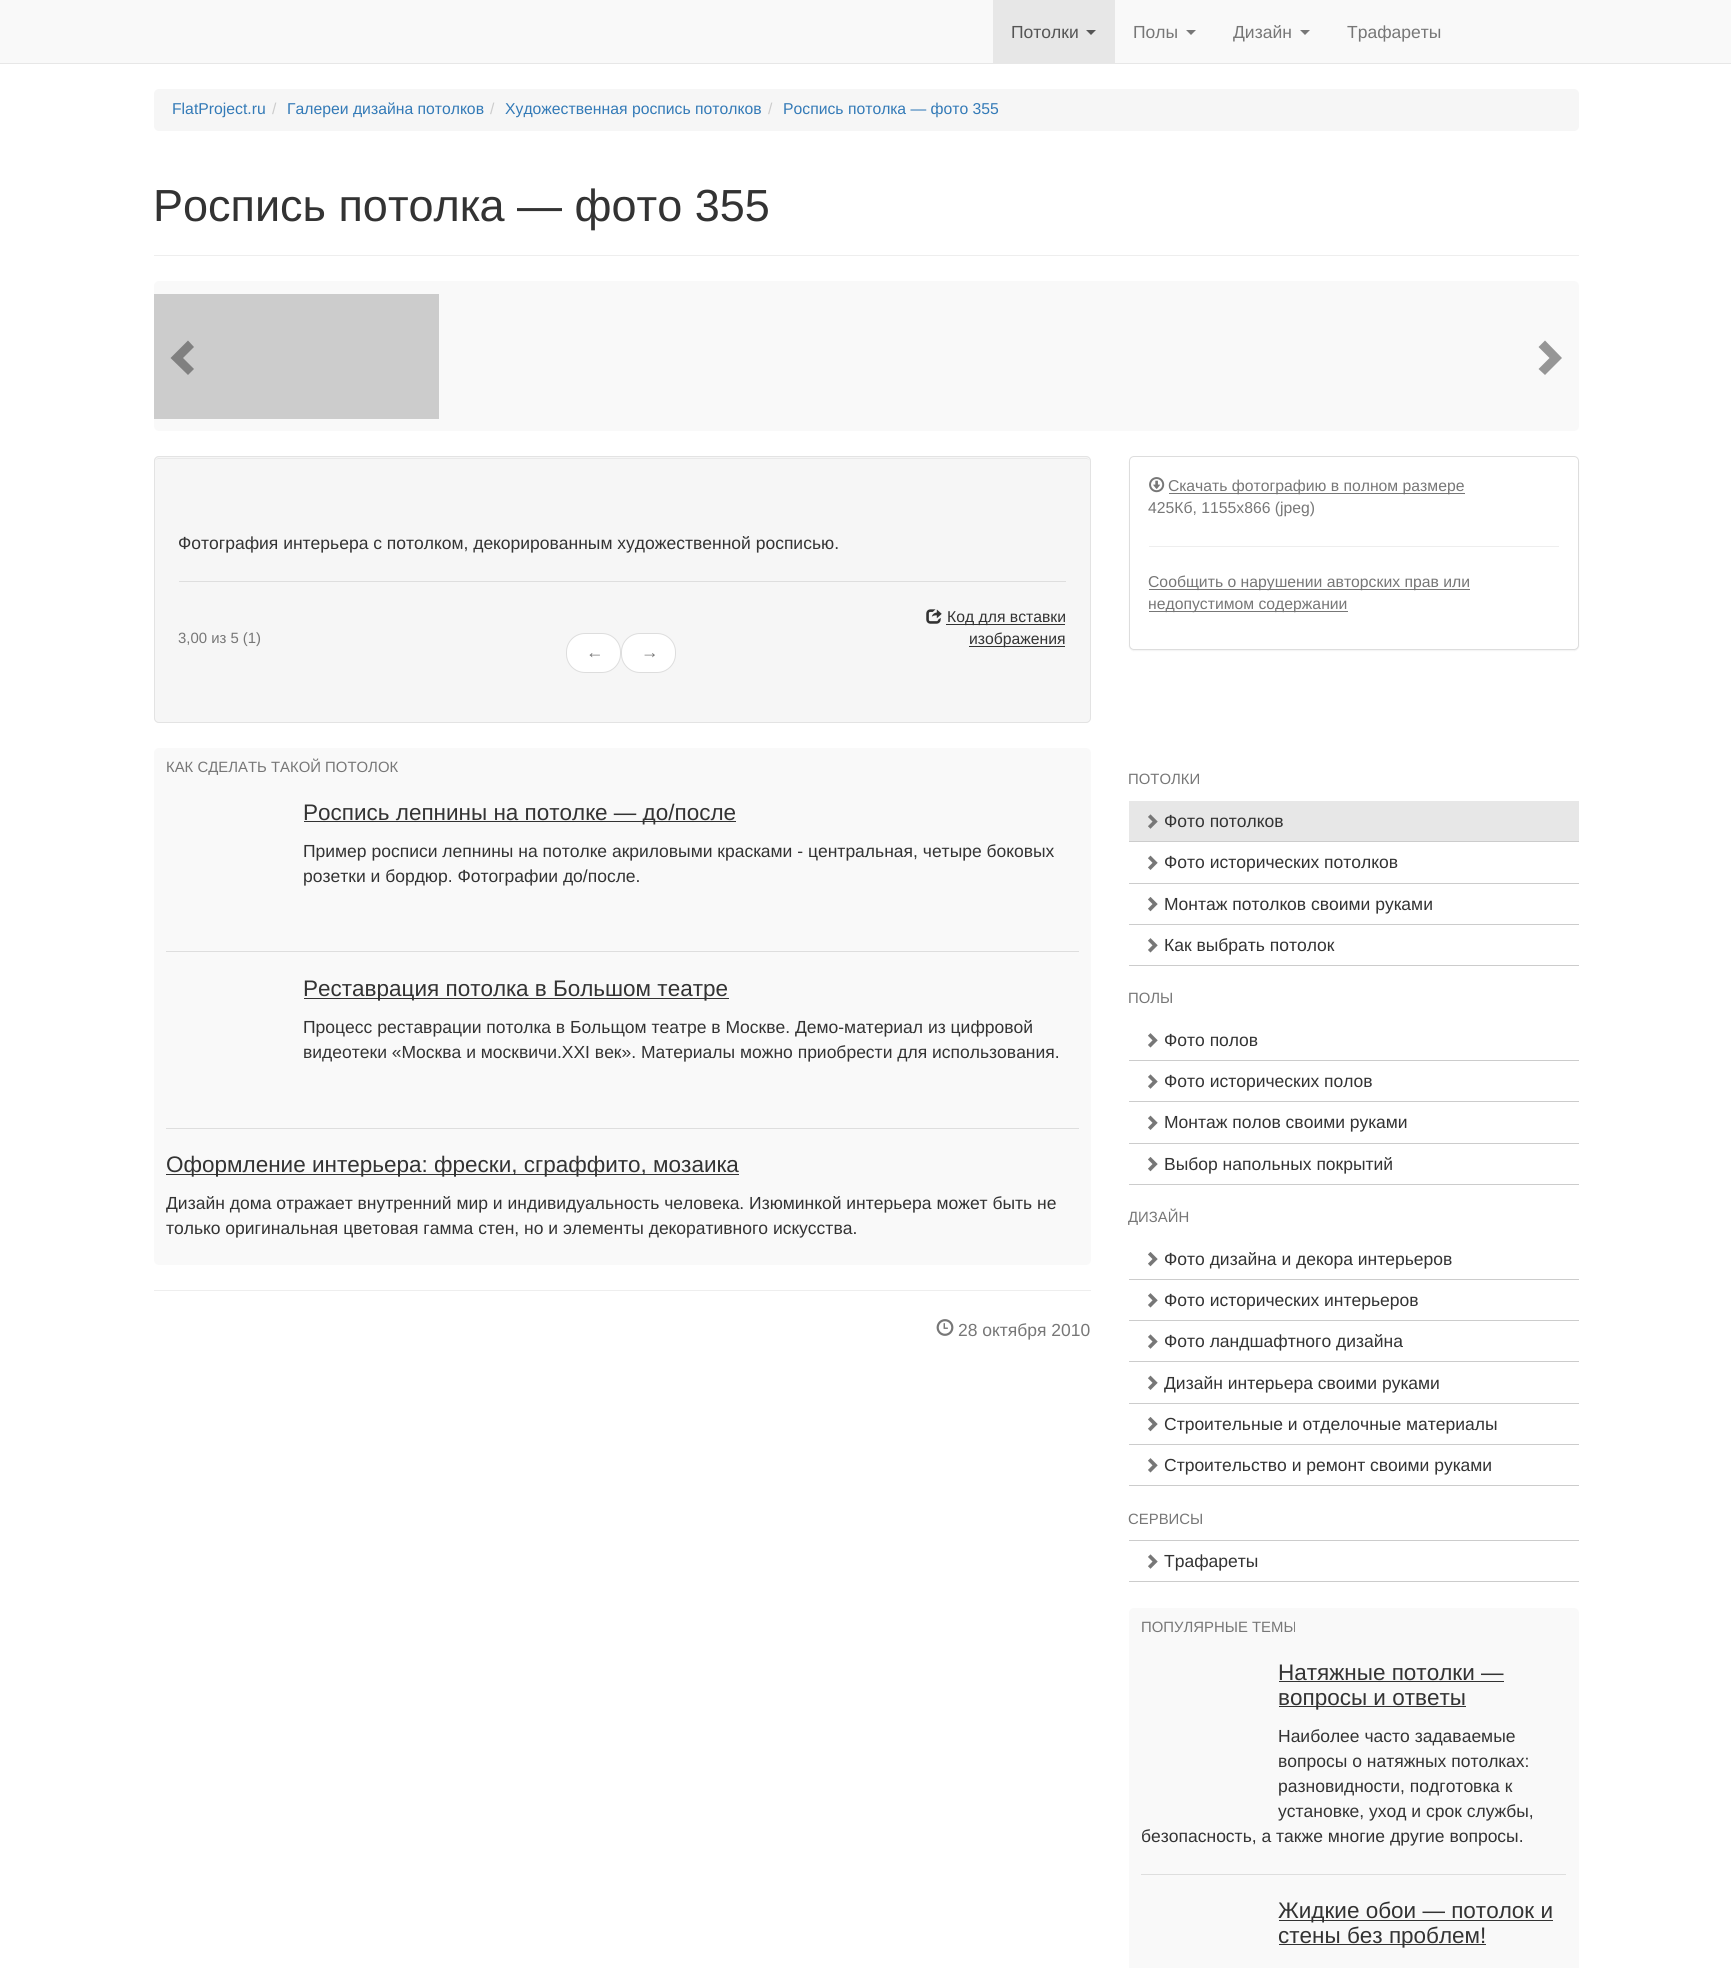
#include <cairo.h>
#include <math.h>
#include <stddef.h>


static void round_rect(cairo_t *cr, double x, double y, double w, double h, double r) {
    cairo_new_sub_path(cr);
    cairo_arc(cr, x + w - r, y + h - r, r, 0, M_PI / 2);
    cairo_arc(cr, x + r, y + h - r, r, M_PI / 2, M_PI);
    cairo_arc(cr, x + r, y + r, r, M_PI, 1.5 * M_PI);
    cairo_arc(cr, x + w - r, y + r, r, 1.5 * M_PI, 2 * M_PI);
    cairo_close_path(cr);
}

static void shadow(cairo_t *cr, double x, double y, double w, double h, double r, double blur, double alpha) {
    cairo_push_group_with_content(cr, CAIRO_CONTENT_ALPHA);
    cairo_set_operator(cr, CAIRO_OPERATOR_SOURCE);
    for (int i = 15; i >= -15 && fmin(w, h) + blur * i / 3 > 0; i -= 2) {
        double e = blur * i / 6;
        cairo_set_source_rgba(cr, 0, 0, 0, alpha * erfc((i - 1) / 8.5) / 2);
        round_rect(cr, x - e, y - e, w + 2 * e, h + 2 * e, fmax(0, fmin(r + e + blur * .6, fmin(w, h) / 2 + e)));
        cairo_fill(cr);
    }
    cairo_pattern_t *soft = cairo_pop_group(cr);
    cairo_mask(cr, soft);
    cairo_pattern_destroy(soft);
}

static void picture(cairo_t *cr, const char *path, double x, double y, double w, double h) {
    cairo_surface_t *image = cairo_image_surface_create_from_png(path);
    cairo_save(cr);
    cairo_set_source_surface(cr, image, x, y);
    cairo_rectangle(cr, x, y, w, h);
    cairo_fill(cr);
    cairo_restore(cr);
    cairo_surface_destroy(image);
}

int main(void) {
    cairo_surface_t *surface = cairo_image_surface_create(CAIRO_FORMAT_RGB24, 1731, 1968);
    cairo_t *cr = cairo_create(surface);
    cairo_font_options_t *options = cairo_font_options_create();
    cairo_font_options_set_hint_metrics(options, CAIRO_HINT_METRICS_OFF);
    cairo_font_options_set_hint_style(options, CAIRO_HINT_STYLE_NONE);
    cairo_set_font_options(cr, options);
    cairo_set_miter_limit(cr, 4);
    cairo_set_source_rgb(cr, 1, 1, 1);
    cairo_paint(cr);
    cairo_set_source_rgb(cr, 0.973, 0.973, 0.973);
    cairo_rectangle(cr, 0, 0, 1731, 63);
    cairo_fill(cr);
    cairo_set_source_rgb(cr, 0.906, 0.906, 0.906);
    cairo_rectangle(cr, 0, 63, 1731, 1);
    cairo_fill(cr);
    cairo_rectangle(cr, 993, 0, 122, 63);
    cairo_fill(cr);
    cairo_select_font_face(cr, "Liberation Sans", CAIRO_FONT_SLANT_NORMAL, CAIRO_FONT_WEIGHT_NORMAL);
    cairo_set_font_size(cr, 17.5);
    cairo_set_source_rgb(cr, 0.333, 0.333, 0.333);
    cairo_move_to(cr, 1011, 38);
    cairo_show_text(cr, "Потолки");
    cairo_new_path(cr);
    cairo_move_to(cr, 1086, 30);
    cairo_line_to(cr, 1096, 30);
    cairo_line_to(cr, 1091, 35);
    cairo_close_path(cr);
    cairo_fill(cr);
    cairo_set_source_rgb(cr, 0.467, 0.467, 0.467);
    cairo_move_to(cr, 1133, 38);
    cairo_show_text(cr, "Полы");
    cairo_new_path(cr);
    cairo_move_to(cr, 1186, 30);
    cairo_line_to(cr, 1196, 30);
    cairo_line_to(cr, 1191, 35);
    cairo_close_path(cr);
    cairo_fill(cr);
    cairo_move_to(cr, 1233, 38);
    cairo_show_text(cr, "Дизайн");
    cairo_new_path(cr);
    cairo_move_to(cr, 1300, 30);
    cairo_line_to(cr, 1310, 30);
    cairo_line_to(cr, 1305, 35);
    cairo_close_path(cr);
    cairo_fill(cr);
    cairo_move_to(cr, 1347, 38);
    cairo_show_text(cr, "Трафареты");
    cairo_set_source_rgb(cr, 0.961, 0.961, 0.961);
    round_rect(cr, 154, 89, 1425, 42, 5);
    cairo_fill(cr);
    cairo_set_font_size(cr, 15.75);
    cairo_set_source_rgb(cr, 0.2, 0.478, 0.718);
    cairo_move_to(cr, 172, 114);
    cairo_show_text(cr, "FlatProject.ru");
    cairo_set_source_rgb(cr, 0.8, 0.8, 0.8);
    cairo_move_to(cr, 272, 114);
    cairo_show_text(cr, "/");
    cairo_set_source_rgb(cr, 0.2, 0.478, 0.718);
    cairo_move_to(cr, 287, 114);
    cairo_show_text(cr, "Галереи дизайна потолков");
    cairo_set_source_rgb(cr, 0.8, 0.8, 0.8);
    cairo_move_to(cr, 490, 114);
    cairo_show_text(cr, "/");
    cairo_set_source_rgb(cr, 0.2, 0.478, 0.718);
    cairo_move_to(cr, 505, 114);
    cairo_show_text(cr, "Художественная роспись потолков");
    cairo_set_source_rgb(cr, 0.8, 0.8, 0.8);
    cairo_move_to(cr, 768, 114);
    cairo_show_text(cr, "/");
    cairo_set_source_rgb(cr, 0.2, 0.478, 0.718);
    cairo_move_to(cr, 783, 114);
    cairo_show_text(cr, "Роспись потолка — фото 355");
    cairo_set_source_rgb(cr, 0.933, 0.933, 0.933);
    cairo_rectangle(cr, 154, 255, 1425, 1);
    cairo_fill(cr);
    cairo_set_font_size(cr, 45);
    cairo_set_source_rgb(cr, 0.2, 0.2, 0.2);
    cairo_move_to(cr, 153, 221);
    cairo_show_text(cr, "Роспись потолка — фото 355");
    cairo_set_source_rgb(cr, 0.973, 0.973, 0.973);
    round_rect(cr, 154, 281, 1425, 150, 5);
    cairo_fill(cr);
    cairo_set_source_rgb(cr, 0.8, 0.8, 0.8);
    cairo_rectangle(cr, 154, 294, 285, 125);
    cairo_fill(cr);
    cairo_set_source_rgb(cr, 0.502, 0.502, 0.502);
    cairo_new_path(cr);
    cairo_move_to(cr, 194, 347);
    cairo_line_to(cr, 183, 358);
    cairo_line_to(cr, 194, 369);
    cairo_line_to(cr, 188, 375);
    cairo_line_to(cr, 170.5, 358);
    cairo_line_to(cr, 188, 340.5);
    cairo_close_path(cr);
    cairo_fill(cr);
    cairo_set_source_rgb(cr, 0.588, 0.588, 0.588);
    cairo_new_path(cr);
    cairo_move_to(cr, 1562, 358);
    cairo_line_to(cr, 1545, 375);
    cairo_line_to(cr, 1538.5, 369);
    cairo_line_to(cr, 1549.5, 358);
    cairo_line_to(cr, 1538.5, 347);
    cairo_line_to(cr, 1545, 340.5);
    cairo_close_path(cr);
    cairo_fill(cr);
    cairo_set_source_rgb(cr, 0.961, 0.961, 0.961);
    round_rect(cr, 154, 456, 937, 267, 5);
    cairo_fill(cr);
    cairo_set_source_rgb(cr, 0.914, 0.914, 0.914);
    cairo_new_path(cr);
    cairo_move_to(cr, 159, 459);
    cairo_line_to(cr, 1086, 459);
    cairo_curve_to(cr, 1088, 459, 1090, 460, 1090, 462);
    cairo_curve_to(cr, 1090, 460, 1088, 458, 1086, 458);
    cairo_line_to(cr, 159, 458);
    cairo_curve_to(cr, 157, 458, 155, 460, 155, 462);
    cairo_curve_to(cr, 155, 460, 157, 459, 159, 459);
    cairo_close_path(cr);
    cairo_fill(cr);
    round_rect(cr, 154.5, 456.5, 936, 266, 4.5);
    cairo_set_source_rgb(cr, 0.89, 0.89, 0.89);
    cairo_set_line_width(cr, 1);
    cairo_stroke(cr);
    cairo_set_font_size(cr, 17.5);
    cairo_set_source_rgb(cr, 0.2, 0.2, 0.2);
    cairo_move_to(cr, 178, 549);
    cairo_show_text(cr, "Фотография интерьера с потолком, декорированным художественной росписью.");
    cairo_set_source_rgb(cr, 0.871, 0.871, 0.871);
    cairo_rectangle(cr, 179, 581, 887, 1);
    cairo_fill(cr);
    cairo_set_font_size(cr, 14.9);
    cairo_set_source_rgb(cr, 0.467, 0.467, 0.467);
    cairo_move_to(cr, 178, 643);
    cairo_show_text(cr, "3,00 из 5 (1)");
    picture(cr, "img1.png", 926, 609, 16, 15);
    cairo_set_source_rgb(cr, 0.2, 0.2, 0.2);
    cairo_rectangle(cr, 946, 624, 119, 1);
    cairo_fill(cr);
    cairo_set_font_size(cr, 15.75);
    cairo_move_to(cr, 947, 622);
    cairo_show_text(cr, "Код для вставки");
    cairo_rectangle(cr, 969, 646, 96, 1);
    cairo_fill(cr);
    cairo_move_to(cr, 969, 644);
    cairo_show_text(cr, "изображения");
    cairo_set_source_rgb(cr, 1, 1, 1);
    round_rect(cr, 566.5, 633.5, 54, 39, 18.5);
    cairo_fill_preserve(cr);
    cairo_set_source_rgb(cr, 0.867, 0.867, 0.867);
    cairo_stroke(cr);
    cairo_set_font_size(cr, 17.5);
    cairo_set_source_rgb(cr, 0.467, 0.467, 0.467);
    cairo_move_to(cr, 586, 658);
    cairo_show_text(cr, "←");
    cairo_set_source_rgb(cr, 1, 1, 1);
    round_rect(cr, 621.5, 633.5, 54, 39, 18.5);
    cairo_fill_preserve(cr);
    cairo_set_source_rgb(cr, 0.867, 0.867, 0.867);
    cairo_stroke(cr);
    cairo_set_source_rgb(cr, 0.467, 0.467, 0.467);
    cairo_move_to(cr, 641, 658);
    cairo_show_text(cr, "→");
    cairo_set_source_rgb(cr, 0, 0, 0);
    shadow(cr, 1129, 458, 450, 193, 5, 0.5, 0.05);
    cairo_set_source_rgb(cr, 1, 1, 1);
    round_rect(cr, 1129.5, 456.5, 449, 193, 4.5);
    cairo_fill_preserve(cr);
    cairo_set_source_rgb(cr, 0.867, 0.867, 0.867);
    cairo_stroke(cr);
    picture(cr, "img2.png", 1149, 477, 16, 16);
    cairo_set_source_rgb(cr, 0.467, 0.467, 0.467);
    cairo_rectangle(cr, 1169, 493, 296, 1);
    cairo_fill(cr);
    cairo_set_font_size(cr, 15.75);
    cairo_move_to(cr, 1168, 491);
    cairo_show_text(cr, "Скачать фотографию в полном размере");
    cairo_move_to(cr, 1148, 513);
    cairo_show_text(cr, "425Кб, 1155x866 (jpeg)");
    cairo_set_source_rgb(cr, 0.933, 0.933, 0.933);
    cairo_rectangle(cr, 1149, 546, 410, 1);
    cairo_fill(cr);
    cairo_set_source_rgb(cr, 0.467, 0.467, 0.467);
    cairo_rectangle(cr, 1149, 589, 321, 1);
    cairo_fill(cr);
    cairo_move_to(cr, 1148, 587);
    cairo_show_text(cr, "Сообщить о нарушении авторских прав или");
    cairo_rectangle(cr, 1149, 611, 199, 1);
    cairo_fill(cr);
    cairo_move_to(cr, 1148, 609);
    cairo_show_text(cr, "недопустимом содержании");
    cairo_set_source_rgb(cr, 0.973, 0.973, 0.973);
    round_rect(cr, 154, 748, 937, 517, 5);
    cairo_fill(cr);
    cairo_set_font_size(cr, 14.9);
    cairo_set_source_rgb(cr, 0.467, 0.467, 0.467);
    cairo_move_to(cr, 166, 772);
    cairo_show_text(cr, "КАК СДЕЛАТЬ ТАКОЙ ПОТОЛОК");
    cairo_set_source_rgb(cr, 0.2, 0.2, 0.2);
    cairo_rectangle(cr, 304, 821, 432, 1);
    cairo_fill(cr);
    cairo_set_font_size(cr, 22.5);
    cairo_move_to(cr, 303, 820);
    cairo_show_text(cr, "Роспись лепнины на потолке — до/после");
    cairo_set_font_size(cr, 17.5);
    cairo_move_to(cr, 303, 857);
    cairo_show_text(cr, "Пример росписи лепнины на потолке акриловыми красками - центральная, четыре боковых");
    cairo_move_to(cr, 303, 882);
    cairo_show_text(cr, "розетки и бордюр. Фотографии до/после.");
    cairo_set_source_rgb(cr, 0.871, 0.871, 0.871);
    cairo_rectangle(cr, 166, 951, 913, 1);
    cairo_fill(cr);
    cairo_set_source_rgb(cr, 0.2, 0.2, 0.2);
    cairo_rectangle(cr, 304, 998, 425, 1);
    cairo_fill(cr);
    cairo_set_font_size(cr, 22.5);
    cairo_move_to(cr, 303, 996);
    cairo_show_text(cr, "Реставрация потолка в Большом театре");
    cairo_set_font_size(cr, 17.5);
    cairo_move_to(cr, 303, 1033);
    cairo_show_text(cr, "Процесс реставрации потолка в Больщом театре в Москве. Демо-материал из цифровой");
    cairo_move_to(cr, 303, 1058);
    cairo_show_text(cr, "видеотеки «Москва и москвичи.XXI век». Материалы можно приобрести для использования.");
    cairo_set_source_rgb(cr, 0.871, 0.871, 0.871);
    cairo_rectangle(cr, 166, 1128, 913, 1);
    cairo_fill(cr);
    cairo_set_source_rgb(cr, 0.2, 0.2, 0.2);
    cairo_rectangle(cr, 166, 1174, 573, 1);
    cairo_fill(cr);
    cairo_set_font_size(cr, 22.5);
    cairo_move_to(cr, 166, 1172);
    cairo_show_text(cr, "Оформление интерьера: фрески, сграффито, мозаика");
    cairo_set_font_size(cr, 17.5);
    cairo_move_to(cr, 166, 1209);
    cairo_show_text(cr, "Дизайн дома отражает внутренний мир и индивидуальность человека. Изюминкой интерьера может быть не");
    cairo_move_to(cr, 166, 1234);
    cairo_show_text(cr, "только оригинальная цветовая гамма стен, но и элементы декоративного искусства.");
    cairo_set_source_rgb(cr, 0.933, 0.933, 0.933);
    cairo_rectangle(cr, 154, 1290, 937, 1);
    cairo_fill(cr);
    picture(cr, "img3.png", 936, 1319, 18, 17);
    cairo_set_source_rgb(cr, 0.467, 0.467, 0.467);
    cairo_move_to(cr, 958, 1336);
    cairo_show_text(cr, "28 октября 2010");
    cairo_set_font_size(cr, 14.9);
    cairo_move_to(cr, 1128, 784);
    cairo_show_text(cr, "ПОТОЛКИ");
    cairo_set_source_rgb(cr, 0.906, 0.906, 0.906);
    cairo_rectangle(cr, 1129, 801, 450, 40);
    cairo_fill(cr);
    picture(cr, "img4.png", 1148, 814, 10, 15);
    cairo_set_font_size(cr, 17.5);
    cairo_set_source_rgb(cr, 0.2, 0.2, 0.2);
    cairo_move_to(cr, 1164, 827);
    cairo_show_text(cr, "Фото потолков");
    cairo_set_source_rgb(cr, 0.8, 0.8, 0.8);
    cairo_rectangle(cr, 1129, 841, 450, 1);
    cairo_fill(cr);
    picture(cr, "img5.png", 1148, 855, 10, 15);
    cairo_set_source_rgb(cr, 0.2, 0.2, 0.2);
    cairo_move_to(cr, 1164, 868);
    cairo_show_text(cr, "Фото исторических потолков");
    cairo_set_source_rgb(cr, 0.8, 0.8, 0.8);
    cairo_rectangle(cr, 1129, 883, 450, 1);
    cairo_fill(cr);
    picture(cr, "img6.png", 1148, 897, 10, 15);
    cairo_set_source_rgb(cr, 0.2, 0.2, 0.2);
    cairo_move_to(cr, 1164, 910);
    cairo_show_text(cr, "Монтаж потолков своими руками");
    cairo_set_source_rgb(cr, 0.8, 0.8, 0.8);
    cairo_rectangle(cr, 1129, 924, 450, 1);
    cairo_fill(cr);
    cairo_rectangle(cr, 1129, 965, 450, 1);
    cairo_fill(cr);
    picture(cr, "img7.png", 1148, 938, 10, 15);
    cairo_set_source_rgb(cr, 0.2, 0.2, 0.2);
    cairo_move_to(cr, 1164, 951);
    cairo_show_text(cr, "Как выбрать потолок");
    cairo_set_font_size(cr, 14.9);
    cairo_set_source_rgb(cr, 0.467, 0.467, 0.467);
    cairo_move_to(cr, 1128, 1003);
    cairo_show_text(cr, "ПОЛЫ");
    picture(cr, "img7.png", 1148, 1033, 10, 15);
    cairo_set_font_size(cr, 17.5);
    cairo_set_source_rgb(cr, 0.2, 0.2, 0.2);
    cairo_move_to(cr, 1164, 1046);
    cairo_show_text(cr, "Фото полов");
    cairo_set_source_rgb(cr, 0.8, 0.8, 0.8);
    cairo_rectangle(cr, 1129, 1060, 450, 1);
    cairo_fill(cr);
    picture(cr, "img8.png", 1148, 1074, 10, 15);
    cairo_set_source_rgb(cr, 0.2, 0.2, 0.2);
    cairo_move_to(cr, 1164, 1087);
    cairo_show_text(cr, "Фото исторических полов");
    cairo_set_source_rgb(cr, 0.8, 0.8, 0.8);
    cairo_rectangle(cr, 1129, 1101, 450, 1);
    cairo_fill(cr);
    picture(cr, "img5.png", 1148, 1115, 10, 15);
    cairo_set_source_rgb(cr, 0.2, 0.2, 0.2);
    cairo_move_to(cr, 1164, 1128);
    cairo_show_text(cr, "Монтаж полов своими руками");
    cairo_set_source_rgb(cr, 0.8, 0.8, 0.8);
    cairo_rectangle(cr, 1129, 1143, 450, 1);
    cairo_fill(cr);
    cairo_rectangle(cr, 1129, 1184, 450, 1);
    cairo_fill(cr);
    picture(cr, "img6.png", 1148, 1157, 10, 15);
    cairo_set_source_rgb(cr, 0.2, 0.2, 0.2);
    cairo_move_to(cr, 1164, 1170);
    cairo_show_text(cr, "Выбор напольных покрытий");
    cairo_set_font_size(cr, 14.9);
    cairo_set_source_rgb(cr, 0.467, 0.467, 0.467);
    cairo_move_to(cr, 1128, 1222);
    cairo_show_text(cr, "ДИЗАЙН");
    picture(cr, "img6.png", 1148, 1252, 10, 15);
    cairo_set_font_size(cr, 17.5);
    cairo_set_source_rgb(cr, 0.2, 0.2, 0.2);
    cairo_move_to(cr, 1164, 1265);
    cairo_show_text(cr, "Фото дизайна и декора интерьеров");
    cairo_set_source_rgb(cr, 0.8, 0.8, 0.8);
    cairo_rectangle(cr, 1129, 1279, 450, 1);
    cairo_fill(cr);
    picture(cr, "img7.png", 1148, 1293, 10, 15);
    cairo_set_source_rgb(cr, 0.2, 0.2, 0.2);
    cairo_move_to(cr, 1164, 1306);
    cairo_show_text(cr, "Фото исторических интерьеров");
    cairo_set_source_rgb(cr, 0.8, 0.8, 0.8);
    cairo_rectangle(cr, 1129, 1320, 450, 1);
    cairo_fill(cr);
    picture(cr, "img8.png", 1148, 1334, 10, 15);
    cairo_set_source_rgb(cr, 0.2, 0.2, 0.2);
    cairo_move_to(cr, 1164, 1347);
    cairo_show_text(cr, "Фото ландшафтного дизайна");
    cairo_set_source_rgb(cr, 0.8, 0.8, 0.8);
    cairo_rectangle(cr, 1129, 1361, 450, 1);
    cairo_fill(cr);
    picture(cr, "img5.png", 1148, 1375, 10, 15);
    cairo_set_source_rgb(cr, 0.2, 0.2, 0.2);
    cairo_move_to(cr, 1164, 1389);
    cairo_show_text(cr, "Дизайн интерьера своими руками");
    cairo_set_source_rgb(cr, 0.8, 0.8, 0.8);
    cairo_rectangle(cr, 1129, 1403, 450, 1);
    cairo_fill(cr);
    picture(cr, "img6.png", 1148, 1417, 10, 15);
    cairo_set_source_rgb(cr, 0.2, 0.2, 0.2);
    cairo_move_to(cr, 1164, 1430);
    cairo_show_text(cr, "Строительные и отделочные материалы");
    cairo_set_source_rgb(cr, 0.8, 0.8, 0.8);
    cairo_rectangle(cr, 1129, 1444, 450, 1);
    cairo_fill(cr);
    cairo_rectangle(cr, 1129, 1485, 450, 1);
    cairo_fill(cr);
    picture(cr, "img7.png", 1148, 1458, 10, 15);
    cairo_set_source_rgb(cr, 0.2, 0.2, 0.2);
    cairo_move_to(cr, 1164, 1471);
    cairo_show_text(cr, "Строительство и ремонт своими руками");
    cairo_set_font_size(cr, 14.9);
    cairo_set_source_rgb(cr, 0.467, 0.467, 0.467);
    cairo_move_to(cr, 1128, 1524);
    cairo_show_text(cr, "СЕРВИСЫ");
    cairo_set_source_rgb(cr, 0.8, 0.8, 0.8);
    cairo_rectangle(cr, 1129, 1540, 450, 1);
    cairo_fill(cr);
    cairo_rectangle(cr, 1129, 1581, 450, 1);
    cairo_fill(cr);
    picture(cr, "img8.png", 1148, 1554, 10, 15);
    cairo_set_font_size(cr, 17.5);
    cairo_set_source_rgb(cr, 0.2, 0.2, 0.2);
    cairo_move_to(cr, 1164, 1567);
    cairo_show_text(cr, "Трафареты");
    cairo_set_source_rgb(cr, 0.973, 0.973, 0.973);
    round_rect(cr, 1129, 1608, 450, 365, 5);
    cairo_fill(cr);
    cairo_set_font_size(cr, 14.9);
    cairo_set_source_rgb(cr, 0.467, 0.467, 0.467);
    cairo_move_to(cr, 1141, 1632);
    cairo_show_text(cr, "ПОПУЛЯРНЫЕ ТЕМЫ");
    cairo_set_font_size(cr, 22.5);
    cairo_set_source_rgb(cr, 0.2, 0.2, 0.2);
    cairo_move_to(cr, 1278, 1680);
    cairo_show_text(cr, "Натяжные потолки —");
    cairo_rectangle(cr, 1279, 1681, 225, 1);
    cairo_fill(cr);
    cairo_rectangle(cr, 1279, 1706, 187, 1);
    cairo_fill(cr);
    cairo_move_to(cr, 1278, 1705);
    cairo_show_text(cr, "вопросы и ответы");
    cairo_set_font_size(cr, 17.5);
    cairo_move_to(cr, 1278, 1742);
    cairo_show_text(cr, "Наиболее часто задаваемые");
    cairo_move_to(cr, 1278, 1767);
    cairo_show_text(cr, "вопросы о натяжных потолках:");
    cairo_move_to(cr, 1278, 1792);
    cairo_show_text(cr, "разновидности, подготовка к");
    cairo_move_to(cr, 1278, 1817);
    cairo_show_text(cr, "установке, уход и срок службы,");
    cairo_move_to(cr, 1141, 1842);
    cairo_show_text(cr, "безопасность, а также многие другие вопросы.");
    cairo_set_source_rgb(cr, 0.871, 0.871, 0.871);
    cairo_rectangle(cr, 1141, 1874, 425, 1);
    cairo_fill(cr);
    cairo_set_source_rgb(cr, 0.2, 0.2, 0.2);
    cairo_rectangle(cr, 1279, 1920, 274, 1);
    cairo_fill(cr);
    cairo_set_font_size(cr, 22.5);
    cairo_move_to(cr, 1278, 1918);
    cairo_show_text(cr, "Жидкие обои — потолок и");
    cairo_rectangle(cr, 1279, 1944, 207, 1);
    cairo_fill(cr);
    cairo_move_to(cr, 1278, 1943);
    cairo_show_text(cr, "стены без проблем!");
    cairo_surface_write_to_png(surface, "page.png");
    cairo_font_options_destroy(options);
    cairo_destroy(cr);
    cairo_surface_destroy(surface);
    return 0;
}
